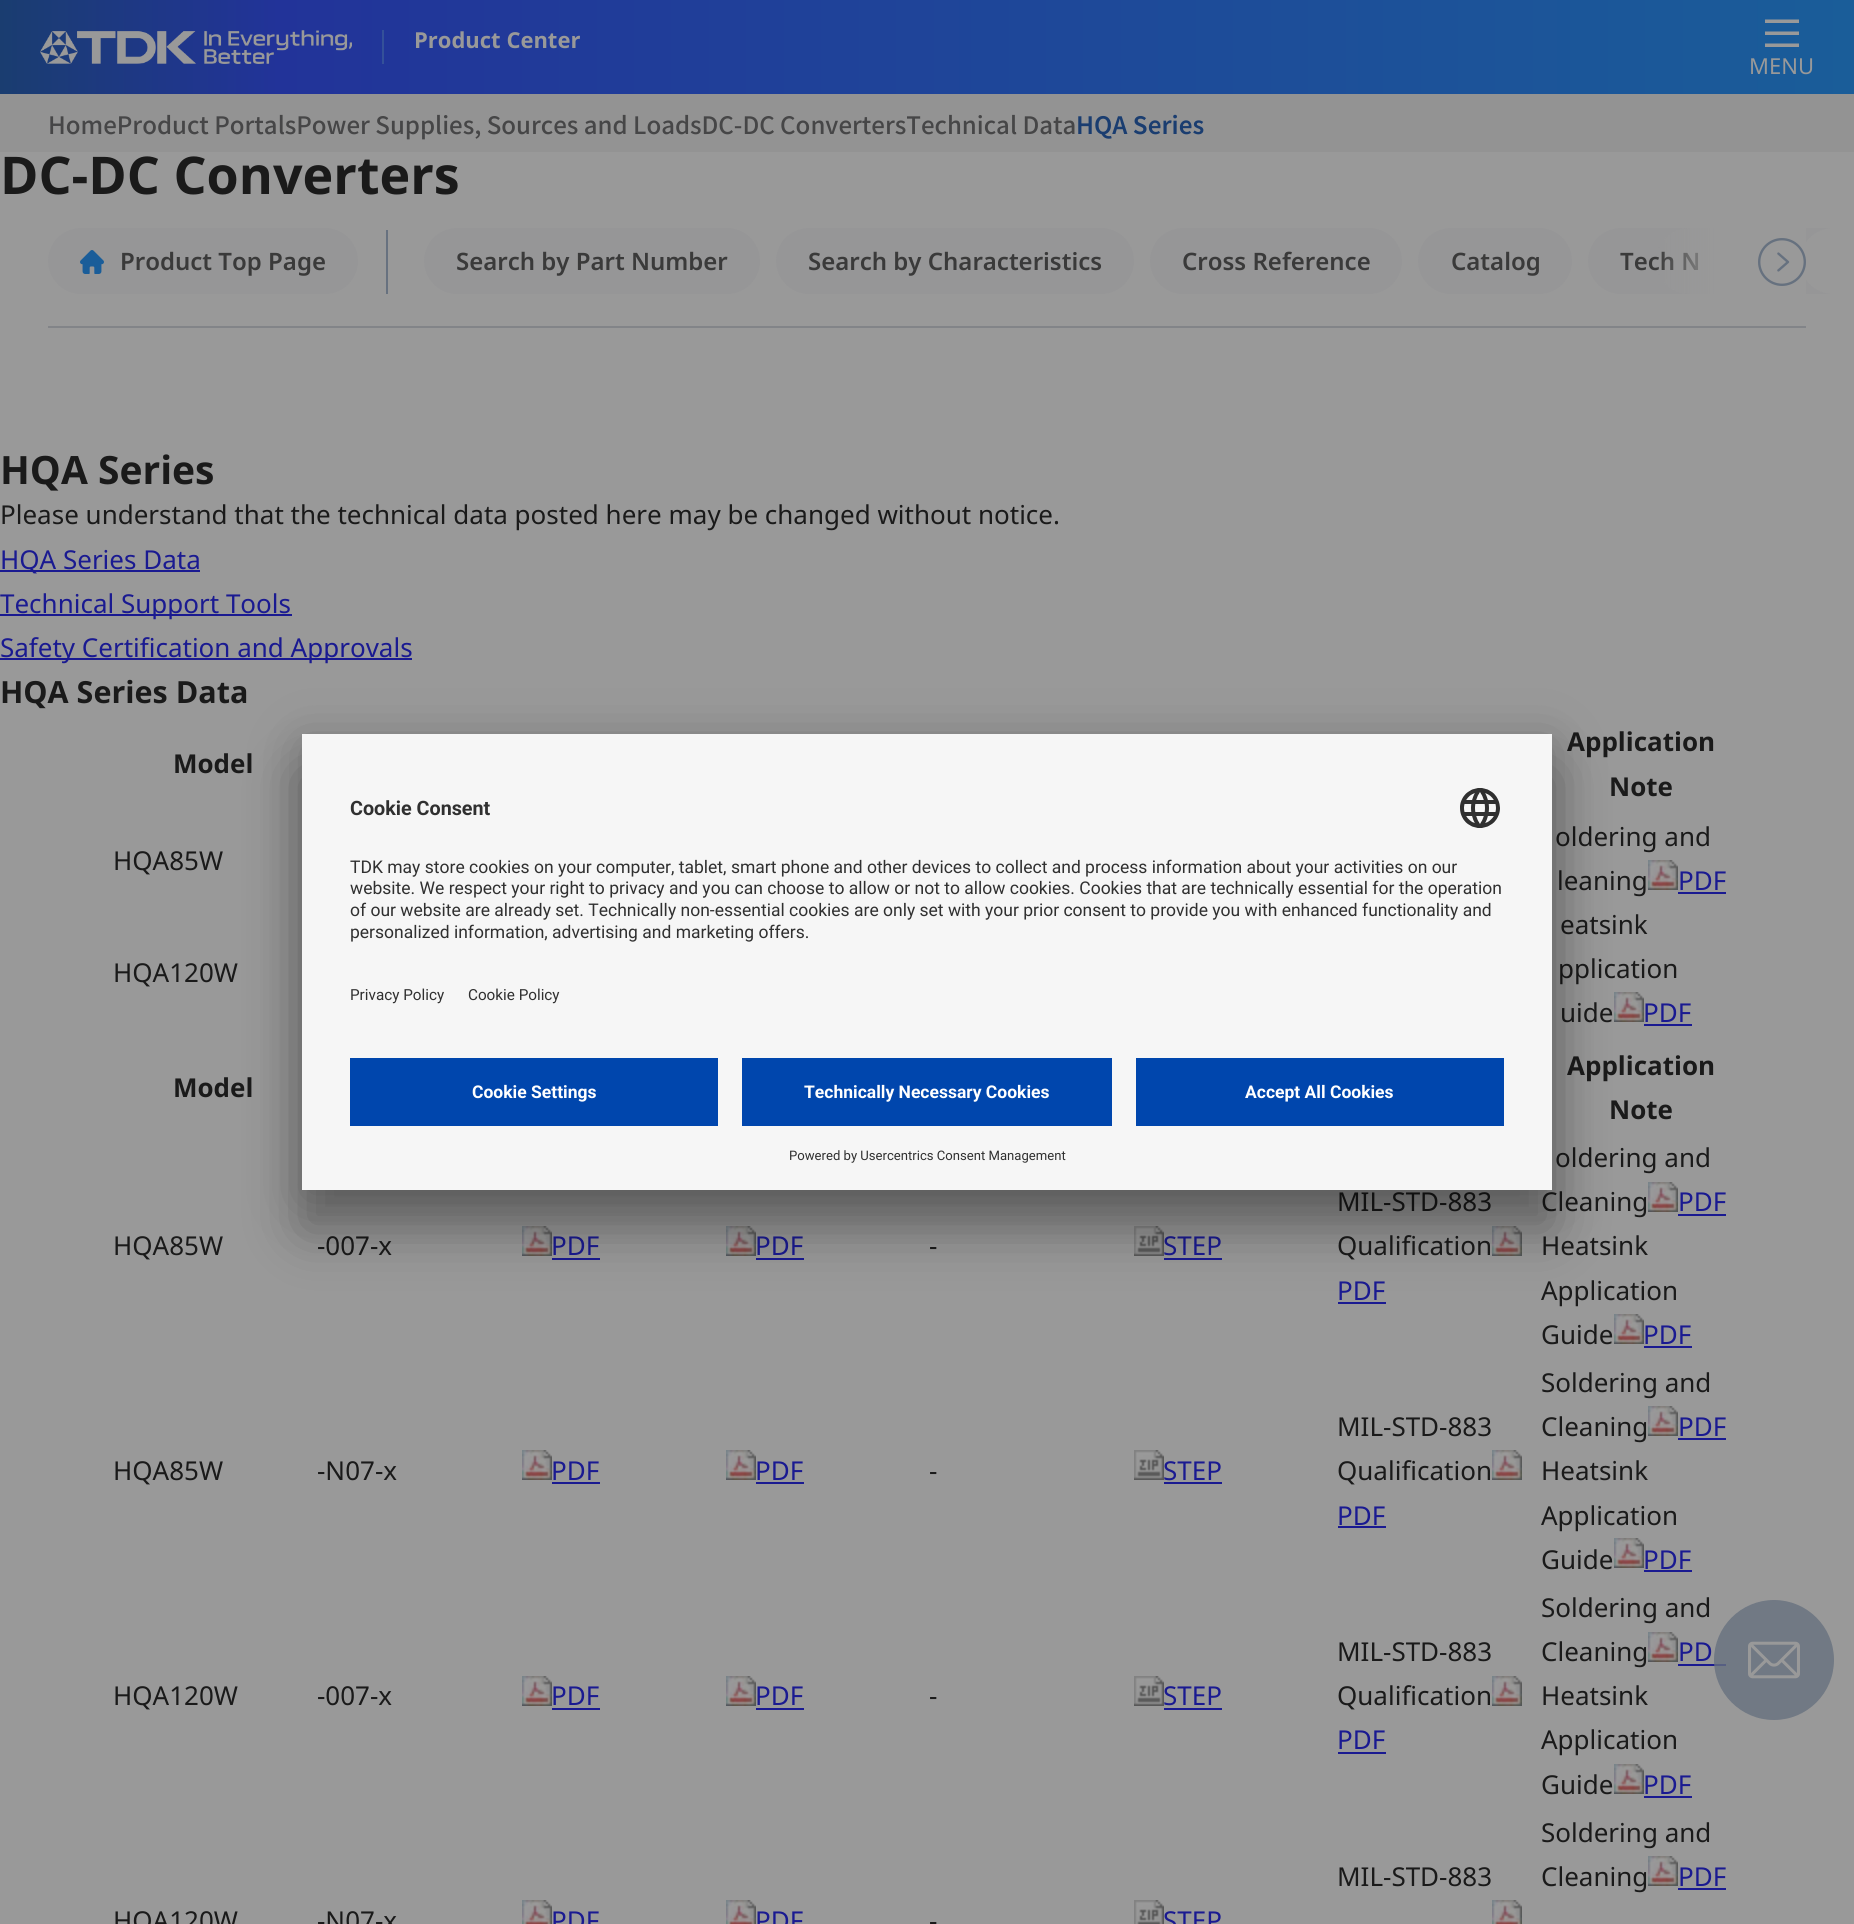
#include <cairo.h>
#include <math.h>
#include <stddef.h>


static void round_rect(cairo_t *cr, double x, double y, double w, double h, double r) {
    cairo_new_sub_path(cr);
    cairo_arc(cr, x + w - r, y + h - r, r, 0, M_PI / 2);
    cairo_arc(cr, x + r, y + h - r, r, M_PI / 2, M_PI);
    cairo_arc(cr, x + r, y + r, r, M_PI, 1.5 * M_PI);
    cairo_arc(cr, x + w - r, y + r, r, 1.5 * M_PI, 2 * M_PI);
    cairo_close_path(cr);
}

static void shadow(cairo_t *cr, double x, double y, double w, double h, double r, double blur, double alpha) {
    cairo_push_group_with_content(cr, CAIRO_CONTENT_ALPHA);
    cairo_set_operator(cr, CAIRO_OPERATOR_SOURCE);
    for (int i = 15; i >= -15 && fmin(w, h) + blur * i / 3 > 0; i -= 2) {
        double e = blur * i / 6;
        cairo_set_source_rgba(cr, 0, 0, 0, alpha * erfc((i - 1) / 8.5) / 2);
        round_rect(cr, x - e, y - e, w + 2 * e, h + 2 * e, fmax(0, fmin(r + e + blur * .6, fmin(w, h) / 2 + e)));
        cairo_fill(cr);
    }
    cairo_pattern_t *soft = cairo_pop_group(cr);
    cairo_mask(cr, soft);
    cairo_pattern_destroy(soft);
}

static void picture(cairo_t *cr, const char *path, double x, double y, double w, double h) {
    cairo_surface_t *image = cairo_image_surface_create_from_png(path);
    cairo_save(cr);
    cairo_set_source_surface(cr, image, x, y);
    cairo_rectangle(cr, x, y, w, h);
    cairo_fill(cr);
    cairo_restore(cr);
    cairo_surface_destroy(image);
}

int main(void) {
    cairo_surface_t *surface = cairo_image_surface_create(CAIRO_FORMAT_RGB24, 1854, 1924);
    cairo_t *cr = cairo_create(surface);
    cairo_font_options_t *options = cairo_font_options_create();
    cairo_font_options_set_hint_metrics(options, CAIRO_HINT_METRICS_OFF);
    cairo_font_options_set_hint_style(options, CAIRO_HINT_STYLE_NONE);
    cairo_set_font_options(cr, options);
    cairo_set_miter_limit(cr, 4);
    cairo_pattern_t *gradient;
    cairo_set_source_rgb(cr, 0.6, 0.6, 0.6);
    cairo_paint(cr);
    gradient = cairo_pattern_create_linear(0, 47, 1854, 47);
    cairo_pattern_add_color_stop_rgba(gradient, 0, 0.102, 0.239, 0.439, 1);
    cairo_pattern_add_color_stop_rgba(gradient, 0.15, 0.133, 0.2, 0.6, 1);
    cairo_pattern_add_color_stop_rgba(gradient, 1, 0.102, 0.365, 0.6, 1);
    cairo_set_source(cr, gradient);
    cairo_pattern_destroy(gradient);
    cairo_rectangle(cr, 0, 0, 1854, 94);
    cairo_fill(cr);
    picture(cr, "img1.png", 40, 30, 312, 34);
    cairo_set_source_rgb(cr, 0.204, 0.318, 0.6);
    cairo_rectangle(cr, 382, 30, 2, 34);
    cairo_fill(cr);
    cairo_select_font_face(cr, "Noto Sans", CAIRO_FONT_SLANT_NORMAL, CAIRO_FONT_WEIGHT_BOLD);
    cairo_set_font_size(cr, 22);
    cairo_set_source_rgb(cr, 0.6, 0.6, 0.6);
    cairo_move_to(cr, 414, 48);
    cairo_show_text(cr, "Product Center");
    cairo_new_path(cr);
    cairo_move_to(cr, 1765, 19.5);
    cairo_line_to(cr, 1799, 19.5);
    cairo_line_to(cr, 1799, 23);
    cairo_line_to(cr, 1765, 23);
    cairo_close_path(cr);
    cairo_move_to(cr, 1765, 43.5);
    cairo_line_to(cr, 1799, 43.5);
    cairo_line_to(cr, 1799, 47);
    cairo_line_to(cr, 1765, 47);
    cairo_close_path(cr);
    cairo_move_to(cr, 1765, 31.5);
    cairo_line_to(cr, 1799, 31.5);
    cairo_line_to(cr, 1799, 35);
    cairo_line_to(cr, 1765, 35);
    cairo_close_path(cr);
    cairo_fill(cr);
    cairo_select_font_face(cr, "Noto Sans", CAIRO_FONT_SLANT_NORMAL, CAIRO_FONT_WEIGHT_NORMAL);
    cairo_move_to(cr, 1749, 74);
    cairo_show_text(cr, "MENU");
    cairo_set_source_rgb(cr, 0.576, 0.576, 0.576);
    cairo_rectangle(cr, 0, 94, 1854, 58);
    cairo_fill(cr);
    cairo_select_font_face(cr, "Noto Sans JP Medium", CAIRO_FONT_SLANT_NORMAL, CAIRO_FONT_WEIGHT_NORMAL);
    cairo_set_font_size(cr, 24);
    cairo_set_source_rgb(cr, 0.275, 0.275, 0.278);
    cairo_move_to(cr, 48, 134);
    cairo_show_text(cr, "HomeProduct PortalsPower Supplies, Sources and LoadsDC-DC ConvertersTechnical Data");
    cairo_select_font_face(cr, "Noto Sans JP SemiBold", CAIRO_FONT_SLANT_NORMAL, CAIRO_FONT_WEIGHT_NORMAL);
    cairo_set_source_rgb(cr, 0.102, 0.239, 0.439);
    cairo_move_to(cr, 1076, 134);
    cairo_show_text(cr, "HQA Series");
    cairo_select_font_face(cr, "Noto Sans", CAIRO_FONT_SLANT_NORMAL, CAIRO_FONT_WEIGHT_BOLD);
    cairo_set_font_size(cr, 52);
    cairo_set_source_rgb(cr, 0.102, 0.102, 0.102);
    cairo_move_to(cr, 0, 194);
    cairo_show_text(cr, "DC-DC Converters");
    cairo_set_source_rgb(cr, 0.51, 0.518, 0.533);
    cairo_rectangle(cr, 48, 326, 1758, 2);
    cairo_fill(cr);
    cairo_set_source_rgb(cr, 0.588, 0.588, 0.592);
    round_rect(cr, 48, 228, 310, 66, 33);
    cairo_fill(cr);
    picture(cr, "img2.png", 80, 250, 24, 24);
    cairo_select_font_face(cr, "Noto Sans SemiBold", CAIRO_FONT_SLANT_NORMAL, CAIRO_FONT_WEIGHT_NORMAL);
    cairo_set_font_size(cr, 24);
    cairo_set_source_rgb(cr, 0.227, 0.227, 0.227);
    cairo_move_to(cr, 120, 270);
    cairo_show_text(cr, "Product Top Page");
    cairo_set_source_rgb(cr, 0.404, 0.443, 0.498);
    cairo_rectangle(cr, 386, 230, 2, 64);
    cairo_fill(cr);
    cairo_set_source_rgb(cr, 0.588, 0.588, 0.592);
    round_rect(cr, 424, 228, 336, 66, 33);
    cairo_fill(cr);
    cairo_set_source_rgb(cr, 0.227, 0.227, 0.227);
    cairo_move_to(cr, 456, 270);
    cairo_show_text(cr, "Search by Part Number");
    cairo_set_source_rgb(cr, 0.588, 0.588, 0.592);
    round_rect(cr, 776, 228, 358, 66, 33);
    cairo_fill(cr);
    cairo_set_source_rgb(cr, 0.227, 0.227, 0.227);
    cairo_move_to(cr, 808, 270);
    cairo_show_text(cr, "Search by Characteristics");
    cairo_set_source_rgb(cr, 0.588, 0.588, 0.592);
    round_rect(cr, 1150, 228, 252, 66, 33);
    cairo_fill(cr);
    cairo_set_source_rgb(cr, 0.227, 0.227, 0.227);
    cairo_move_to(cr, 1182, 270);
    cairo_show_text(cr, "Cross Reference");
    cairo_set_source_rgb(cr, 0.588, 0.588, 0.592);
    round_rect(cr, 1418, 228, 154, 66, 33);
    cairo_fill(cr);
    cairo_set_source_rgb(cr, 0.227, 0.227, 0.227);
    cairo_move_to(cr, 1451, 270);
    cairo_show_text(cr, "Catalog");
    cairo_set_source_rgb(cr, 0.588, 0.588, 0.592);
    round_rect(cr, 1588, 228, 196, 66, 33);
    cairo_fill(cr);
    cairo_set_source_rgb(cr, 0.227, 0.227, 0.227);
    cairo_move_to(cr, 1620, 270);
    cairo_show_text(cr, "Tech N");
    cairo_set_source_rgb(cr, 0.588, 0.588, 0.592);
    cairo_new_path(cr);
    cairo_move_to(cr, 1833, 228);
    cairo_line_to(cr, 1806, 228);
    cairo_line_to(cr, 1806, 294);
    cairo_line_to(cr, 1833, 294);
    cairo_curve_to(cr, 1815, 294, 1800, 279, 1800, 261);
    cairo_curve_to(cr, 1800, 243, 1815, 228, 1833, 228);
    cairo_close_path(cr);
    cairo_fill(cr);
    gradient = cairo_pattern_create_linear(1656, 261, 1806, 261);
    cairo_pattern_add_color_stop_rgba(gradient, 0, 0.6, 0.6, 0.6, 0);
    cairo_pattern_add_color_stop_rgba(gradient, 0.43, 0.6, 0.6, 0.6, 1);
    cairo_set_source(cr, gradient);
    cairo_pattern_destroy(gradient);
    cairo_new_path(cr);
    cairo_move_to(cr, 1689, 228);
    cairo_line_to(cr, 1806, 228);
    cairo_line_to(cr, 1806, 294);
    cairo_line_to(cr, 1689, 294);
    cairo_curve_to(cr, 1671, 294, 1656, 279, 1656, 261);
    cairo_curve_to(cr, 1656, 243, 1671, 228, 1689, 228);
    cairo_close_path(cr);
    cairo_fill(cr);
    picture(cr, "img3.png", 1758, 238, 48, 48);
    cairo_select_font_face(cr, "Noto Sans", CAIRO_FONT_SLANT_NORMAL, CAIRO_FONT_WEIGHT_BOLD);
    cairo_set_font_size(cr, 39);
    cairo_set_source_rgb(cr, 0.102, 0.102, 0.102);
    cairo_move_to(cr, 0, 484);
    cairo_show_text(cr, "HQA Series");
    cairo_select_font_face(cr, "Noto Sans", CAIRO_FONT_SLANT_NORMAL, CAIRO_FONT_WEIGHT_NORMAL);
    cairo_set_font_size(cr, 26);
    cairo_move_to(cr, 0, 524);
    cairo_show_text(cr, "Please understand that the technical data posted here may be changed without notice.");
    cairo_set_source_rgb(cr, 0.102, 0.102, 0.569);
    cairo_rectangle(cr, 0, 570, 200, 2);
    cairo_fill(cr);
    cairo_move_to(cr, 0, 569);
    cairo_show_text(cr, "HQA Series Data");
    cairo_rectangle(cr, 0, 614, 292, 2);
    cairo_fill(cr);
    cairo_move_to(cr, 0, 613);
    cairo_show_text(cr, "Technical Support Tools");
    cairo_rectangle(cr, 0, 658, 412, 2);
    cairo_fill(cr);
    cairo_move_to(cr, 0, 657);
    cairo_show_text(cr, "Safety Certification and Approvals");
    cairo_select_font_face(cr, "Noto Sans", CAIRO_FONT_SLANT_NORMAL, CAIRO_FONT_WEIGHT_BOLD);
    cairo_set_font_size(cr, 30.5);
    cairo_set_source_rgb(cr, 0.102, 0.102, 0.102);
    cairo_move_to(cr, 0, 703);
    cairo_show_text(cr, "HQA Series Data");
    cairo_set_font_size(cr, 26);
    cairo_move_to(cr, 173, 773);
    cairo_show_text(cr, "Model");
    cairo_move_to(cr, 1567, 751);
    cairo_show_text(cr, "Application");
    cairo_move_to(cr, 1609, 796);
    cairo_show_text(cr, "Note");
    cairo_select_font_face(cr, "Noto Sans", CAIRO_FONT_SLANT_NORMAL, CAIRO_FONT_WEIGHT_NORMAL);
    cairo_move_to(cr, 113, 870);
    cairo_show_text(cr, "HQA85W");
    cairo_move_to(cr, 1555, 846);
    cairo_show_text(cr, "oldering and");
    cairo_move_to(cr, 1557, 890);
    cairo_show_text(cr, "leaning");
    picture(cr, "img4.png", 1648, 860, 30, 30);
    cairo_set_source_rgb(cr, 0.102, 0.102, 0.569);
    cairo_move_to(cr, 1678, 890);
    cairo_show_text(cr, "PDF");
    cairo_rectangle(cr, 1678, 892, 48, 2);
    cairo_fill(cr);
    cairo_set_source_rgb(cr, 0.102, 0.102, 0.102);
    cairo_move_to(cr, 1560, 934);
    cairo_show_text(cr, "eatsink");
    cairo_move_to(cr, 1558, 978);
    cairo_show_text(cr, "pplication");
    cairo_move_to(cr, 1560, 1022);
    cairo_show_text(cr, "uide");
    picture(cr, "img4.png", 1614, 992, 30, 30);
    cairo_set_source_rgb(cr, 0.102, 0.102, 0.569);
    cairo_move_to(cr, 1643, 1022);
    cairo_show_text(cr, "PDF");
    cairo_rectangle(cr, 1644, 1024, 48, 2);
    cairo_fill(cr);
    cairo_set_source_rgb(cr, 0.102, 0.102, 0.102);
    cairo_move_to(cr, 113, 982);
    cairo_show_text(cr, "HQA120W");
    cairo_select_font_face(cr, "Noto Sans", CAIRO_FONT_SLANT_NORMAL, CAIRO_FONT_WEIGHT_BOLD);
    cairo_move_to(cr, 173, 1097);
    cairo_show_text(cr, "Model");
    cairo_move_to(cr, 1567, 1075);
    cairo_show_text(cr, "Application");
    cairo_move_to(cr, 1609, 1119);
    cairo_show_text(cr, "Note");
    cairo_select_font_face(cr, "Noto Sans", CAIRO_FONT_SLANT_NORMAL, CAIRO_FONT_WEIGHT_NORMAL);
    cairo_move_to(cr, 113, 1255);
    cairo_show_text(cr, "HQA85W");
    cairo_move_to(cr, 317, 1255);
    cairo_show_text(cr, "-007-x");
    picture(cr, "img4.png", 522, 1226, 30, 30);
    cairo_set_source_rgb(cr, 0.102, 0.102, 0.569);
    cairo_move_to(cr, 551, 1255);
    cairo_show_text(cr, "PDF");
    cairo_rectangle(cr, 552, 1258, 48, 2);
    cairo_fill(cr);
    picture(cr, "img4.png", 726, 1226, 30, 30);
    cairo_move_to(cr, 755, 1255);
    cairo_show_text(cr, "PDF");
    cairo_rectangle(cr, 756, 1258, 48, 2);
    cairo_fill(cr);
    cairo_set_source_rgb(cr, 0.102, 0.102, 0.102);
    cairo_move_to(cr, 929, 1255);
    cairo_show_text(cr, "‐");
    picture(cr, "img5.png", 1134, 1226, 30, 30);
    cairo_set_source_rgb(cr, 0.102, 0.102, 0.569);
    cairo_move_to(cr, 1163, 1255);
    cairo_show_text(cr, "STEP");
    cairo_rectangle(cr, 1164, 1258, 58, 2);
    cairo_fill(cr);
    cairo_set_source_rgb(cr, 0.102, 0.102, 0.102);
    cairo_move_to(cr, 1337, 1211);
    cairo_show_text(cr, "MIL-STD-883");
    cairo_move_to(cr, 1337, 1255);
    cairo_show_text(cr, "Qualification");
    picture(cr, "img4.png", 1492, 1226, 30, 30);
    cairo_set_source_rgb(cr, 0.102, 0.102, 0.569);
    cairo_move_to(cr, 1337, 1300);
    cairo_show_text(cr, "PDF");
    cairo_rectangle(cr, 1338, 1302, 48, 2);
    cairo_fill(cr);
    cairo_set_source_rgb(cr, 0.102, 0.102, 0.102);
    cairo_move_to(cr, 1555, 1167);
    cairo_show_text(cr, "oldering and");
    cairo_move_to(cr, 1541, 1211);
    cairo_show_text(cr, "Cleaning");
    picture(cr, "img4.png", 1648, 1182, 30, 30);
    cairo_set_source_rgb(cr, 0.102, 0.102, 0.569);
    cairo_move_to(cr, 1678, 1211);
    cairo_show_text(cr, "PDF");
    cairo_rectangle(cr, 1678, 1214, 48, 2);
    cairo_fill(cr);
    cairo_set_source_rgb(cr, 0.102, 0.102, 0.102);
    cairo_move_to(cr, 1541, 1255);
    cairo_show_text(cr, "Heatsink");
    cairo_move_to(cr, 1541, 1300);
    cairo_show_text(cr, "Application");
    cairo_move_to(cr, 1541, 1344);
    cairo_show_text(cr, "Guide");
    picture(cr, "img4.png", 1614, 1314, 30, 30);
    cairo_set_source_rgb(cr, 0.102, 0.102, 0.569);
    cairo_move_to(cr, 1643, 1344);
    cairo_show_text(cr, "PDF");
    cairo_rectangle(cr, 1644, 1346, 48, 2);
    cairo_fill(cr);
    cairo_set_source_rgb(cr, 0.102, 0.102, 0.102);
    cairo_move_to(cr, 113, 1480);
    cairo_show_text(cr, "HQA85W");
    cairo_move_to(cr, 317, 1480);
    cairo_show_text(cr, "-N07-x");
    picture(cr, "img4.png", 522, 1450, 30, 30);
    cairo_set_source_rgb(cr, 0.102, 0.102, 0.569);
    cairo_move_to(cr, 551, 1480);
    cairo_show_text(cr, "PDF");
    cairo_rectangle(cr, 552, 1482, 48, 2);
    cairo_fill(cr);
    picture(cr, "img4.png", 726, 1450, 30, 30);
    cairo_move_to(cr, 755, 1480);
    cairo_show_text(cr, "PDF");
    cairo_rectangle(cr, 756, 1482, 48, 2);
    cairo_fill(cr);
    cairo_set_source_rgb(cr, 0.102, 0.102, 0.102);
    cairo_move_to(cr, 929, 1480);
    cairo_show_text(cr, "‐");
    picture(cr, "img5.png", 1134, 1450, 30, 30);
    cairo_set_source_rgb(cr, 0.102, 0.102, 0.569);
    cairo_move_to(cr, 1163, 1480);
    cairo_show_text(cr, "STEP");
    cairo_rectangle(cr, 1164, 1482, 58, 2);
    cairo_fill(cr);
    cairo_set_source_rgb(cr, 0.102, 0.102, 0.102);
    cairo_move_to(cr, 1337, 1436);
    cairo_show_text(cr, "MIL-STD-883");
    cairo_move_to(cr, 1337, 1480);
    cairo_show_text(cr, "Qualification");
    picture(cr, "img4.png", 1492, 1450, 30, 30);
    cairo_set_source_rgb(cr, 0.102, 0.102, 0.569);
    cairo_move_to(cr, 1337, 1525);
    cairo_show_text(cr, "PDF");
    cairo_rectangle(cr, 1338, 1526, 48, 2);
    cairo_fill(cr);
    cairo_set_source_rgb(cr, 0.102, 0.102, 0.102);
    cairo_move_to(cr, 1541, 1392);
    cairo_show_text(cr, "Soldering and");
    cairo_move_to(cr, 1541, 1436);
    cairo_show_text(cr, "Cleaning");
    picture(cr, "img4.png", 1648, 1406, 30, 30);
    cairo_set_source_rgb(cr, 0.102, 0.102, 0.569);
    cairo_move_to(cr, 1678, 1436);
    cairo_show_text(cr, "PDF");
    cairo_rectangle(cr, 1678, 1438, 48, 2);
    cairo_fill(cr);
    cairo_set_source_rgb(cr, 0.102, 0.102, 0.102);
    cairo_move_to(cr, 1541, 1480);
    cairo_show_text(cr, "Heatsink");
    cairo_move_to(cr, 1541, 1525);
    cairo_show_text(cr, "Application");
    cairo_move_to(cr, 1541, 1569);
    cairo_show_text(cr, "Guide");
    picture(cr, "img4.png", 1614, 1538, 30, 30);
    cairo_set_source_rgb(cr, 0.102, 0.102, 0.569);
    cairo_move_to(cr, 1643, 1569);
    cairo_show_text(cr, "PDF");
    cairo_rectangle(cr, 1644, 1570, 48, 2);
    cairo_fill(cr);
    cairo_set_source_rgb(cr, 0.102, 0.102, 0.102);
    cairo_move_to(cr, 113, 1705);
    cairo_show_text(cr, "HQA120W");
    cairo_move_to(cr, 317, 1705);
    cairo_show_text(cr, "-007-x");
    picture(cr, "img4.png", 522, 1676, 30, 30);
    cairo_set_source_rgb(cr, 0.102, 0.102, 0.569);
    cairo_move_to(cr, 551, 1705);
    cairo_show_text(cr, "PDF");
    cairo_rectangle(cr, 552, 1708, 48, 2);
    cairo_fill(cr);
    picture(cr, "img4.png", 726, 1676, 30, 30);
    cairo_move_to(cr, 755, 1705);
    cairo_show_text(cr, "PDF");
    cairo_rectangle(cr, 756, 1708, 48, 2);
    cairo_fill(cr);
    cairo_set_source_rgb(cr, 0.102, 0.102, 0.102);
    cairo_move_to(cr, 929, 1705);
    cairo_show_text(cr, "‐");
    picture(cr, "img5.png", 1134, 1676, 30, 30);
    cairo_set_source_rgb(cr, 0.102, 0.102, 0.569);
    cairo_move_to(cr, 1163, 1705);
    cairo_show_text(cr, "STEP");
    cairo_rectangle(cr, 1164, 1708, 58, 2);
    cairo_fill(cr);
    cairo_set_source_rgb(cr, 0.102, 0.102, 0.102);
    cairo_move_to(cr, 1337, 1661);
    cairo_show_text(cr, "MIL-STD-883");
    cairo_move_to(cr, 1337, 1705);
    cairo_show_text(cr, "Qualification");
    picture(cr, "img4.png", 1492, 1676, 30, 30);
    cairo_set_source_rgb(cr, 0.102, 0.102, 0.569);
    cairo_move_to(cr, 1337, 1749);
    cairo_show_text(cr, "PDF");
    cairo_rectangle(cr, 1338, 1752, 48, 2);
    cairo_fill(cr);
    cairo_set_source_rgb(cr, 0.102, 0.102, 0.102);
    cairo_move_to(cr, 1541, 1617);
    cairo_show_text(cr, "Soldering and");
    cairo_move_to(cr, 1541, 1661);
    cairo_show_text(cr, "Cleaning");
    picture(cr, "img4.png", 1648, 1632, 30, 30);
    cairo_set_source_rgb(cr, 0.102, 0.102, 0.569);
    cairo_move_to(cr, 1678, 1661);
    cairo_show_text(cr, "PD");
    cairo_rectangle(cr, 1678, 1664, 48, 2);
    cairo_fill(cr);
    cairo_set_source_rgb(cr, 0.102, 0.102, 0.102);
    cairo_move_to(cr, 1541, 1705);
    cairo_show_text(cr, "Heatsink");
    cairo_move_to(cr, 1541, 1749);
    cairo_show_text(cr, "Application");
    cairo_move_to(cr, 1541, 1794);
    cairo_show_text(cr, "Guide");
    picture(cr, "img4.png", 1614, 1764, 30, 30);
    cairo_set_source_rgb(cr, 0.102, 0.102, 0.569);
    cairo_move_to(cr, 1643, 1794);
    cairo_show_text(cr, "PDF");
    cairo_rectangle(cr, 1644, 1796, 48, 2);
    cairo_fill(cr);
    cairo_set_source_rgb(cr, 0.102, 0.102, 0.102);
    cairo_move_to(cr, 1337, 1886);
    cairo_show_text(cr, "MIL-STD-883");
    picture(cr, "img6.png", 1492, 1900, 30, 24);
    cairo_move_to(cr, 1541, 1842);
    cairo_show_text(cr, "Soldering and");
    cairo_move_to(cr, 1541, 1886);
    cairo_show_text(cr, "Cleaning");
    picture(cr, "img4.png", 1648, 1856, 30, 30);
    cairo_set_source_rgb(cr, 0.102, 0.102, 0.569);
    cairo_move_to(cr, 1678, 1886);
    cairo_show_text(cr, "PDF");
    cairo_rectangle(cr, 1678, 1888, 48, 2);
    cairo_fill(cr);
    cairo_set_source_rgb(cr, 0.102, 0.102, 0.102);
    cairo_move_to(cr, 113, 1930);
    cairo_show_text(cr, "HQA120W");
    cairo_move_to(cr, 317, 1930);
    cairo_show_text(cr, "-N07-x");
    picture(cr, "img6.png", 522, 1900, 30, 24);
    cairo_set_source_rgb(cr, 0.102, 0.102, 0.569);
    cairo_move_to(cr, 551, 1930);
    cairo_show_text(cr, "PDF");
    picture(cr, "img6.png", 726, 1900, 30, 24);
    cairo_move_to(cr, 755, 1930);
    cairo_show_text(cr, "PDF");
    cairo_set_source_rgb(cr, 0.102, 0.102, 0.102);
    cairo_move_to(cr, 929, 1930);
    cairo_show_text(cr, "‐");
    picture(cr, "img7.png", 1134, 1900, 30, 24);
    cairo_set_source_rgb(cr, 0.102, 0.102, 0.569);
    cairo_move_to(cr, 1163, 1930);
    cairo_show_text(cr, "STEP");
    cairo_set_source_rgba(cr, 0.404, 0.443, 0.498, 0.8);
    cairo_new_path(cr);
    cairo_arc(cr, 1774, 1660, 60, 0, 2 * M_PI);
    cairo_fill(cr);
    picture(cr, "img8.png", 1748, 1641, 52, 38);
    cairo_set_source_rgb(cr, 0, 0, 0);
    shadow(cr, 302, 774, 1250, 456, 0, 28, 0.3);
    shadow(cr, 302, 744, 1250, 456, 0, 26, 0.22);
    cairo_set_source_rgb(cr, 0.961, 0.961, 0.961);
    cairo_rectangle(cr, 302, 734, 1250, 456);
    cairo_fill(cr);
    cairo_select_font_face(cr, "Roboto", CAIRO_FONT_SLANT_NORMAL, CAIRO_FONT_WEIGHT_BOLD);
    cairo_set_font_size(cr, 19.75);
    cairo_set_source_rgb(cr, 0.188, 0.188, 0.188);
    cairo_move_to(cr, 350, 815);
    cairo_show_text(cr, "Cookie Consent");
    picture(cr, "img9.png", 1460, 788, 40, 40);
    cairo_select_font_face(cr, "Roboto", CAIRO_FONT_SLANT_NORMAL, CAIRO_FONT_WEIGHT_NORMAL);
    cairo_set_font_size(cr, 17.5);
    cairo_move_to(cr, 350, 873);
    cairo_show_text(cr, "TDK may store cookies on your computer, tablet, smart phone and other devices to collect and process information about your activities on our");
    cairo_move_to(cr, 350, 894);
    cairo_show_text(cr, "website. We respect your right to privacy and you can choose to allow or not to allow cookies. Cookies that are technically essential for the operation");
    cairo_move_to(cr, 350, 916);
    cairo_show_text(cr, "of our website are already set. Technically non-essential cookies are only set with your prior consent to provide you with enhanced functionality and");
    cairo_move_to(cr, 350, 938);
    cairo_show_text(cr, "personalized information, advertising and marketing offers.");
    cairo_set_font_size(cr, 15.25);
    cairo_move_to(cr, 350, 1000);
    cairo_show_text(cr, "Privacy Policy");
    cairo_move_to(cr, 468, 1000);
    cairo_show_text(cr, "Cookie Policy");
    cairo_set_source_rgb(cr, 0, 0.275, 0.678);
    cairo_rectangle(cr, 350, 1058, 368, 68);
    cairo_fill(cr);
    cairo_select_font_face(cr, "Roboto", CAIRO_FONT_SLANT_NORMAL, CAIRO_FONT_WEIGHT_BOLD);
    cairo_set_font_size(cr, 17.5);
    cairo_set_source_rgb(cr, 1, 1, 1);
    cairo_move_to(cr, 472, 1098);
    cairo_show_text(cr, "Cookie Settings");
    cairo_set_source_rgb(cr, 0, 0.275, 0.678);
    cairo_rectangle(cr, 742, 1058, 370, 68);
    cairo_fill(cr);
    cairo_set_source_rgb(cr, 1, 1, 1);
    cairo_move_to(cr, 804, 1098);
    cairo_show_text(cr, "Technically Necessary Cookies");
    cairo_set_source_rgb(cr, 0, 0.275, 0.678);
    cairo_rectangle(cr, 1136, 1058, 368, 68);
    cairo_fill(cr);
    cairo_set_source_rgb(cr, 1, 1, 1);
    cairo_move_to(cr, 1245, 1098);
    cairo_show_text(cr, "Accept All Cookies");
    cairo_select_font_face(cr, "Roboto", CAIRO_FONT_SLANT_NORMAL, CAIRO_FONT_WEIGHT_NORMAL);
    cairo_set_font_size(cr, 13.1);
    cairo_set_source_rgb(cr, 0.188, 0.188, 0.188);
    cairo_move_to(cr, 789, 1160);
    cairo_show_text(cr, "Powered by Usercentrics Consent Management");
    cairo_surface_write_to_png(surface, "page.png");
    cairo_font_options_destroy(options);
    cairo_destroy(cr);
    cairo_surface_destroy(surface);
    return 0;
}
